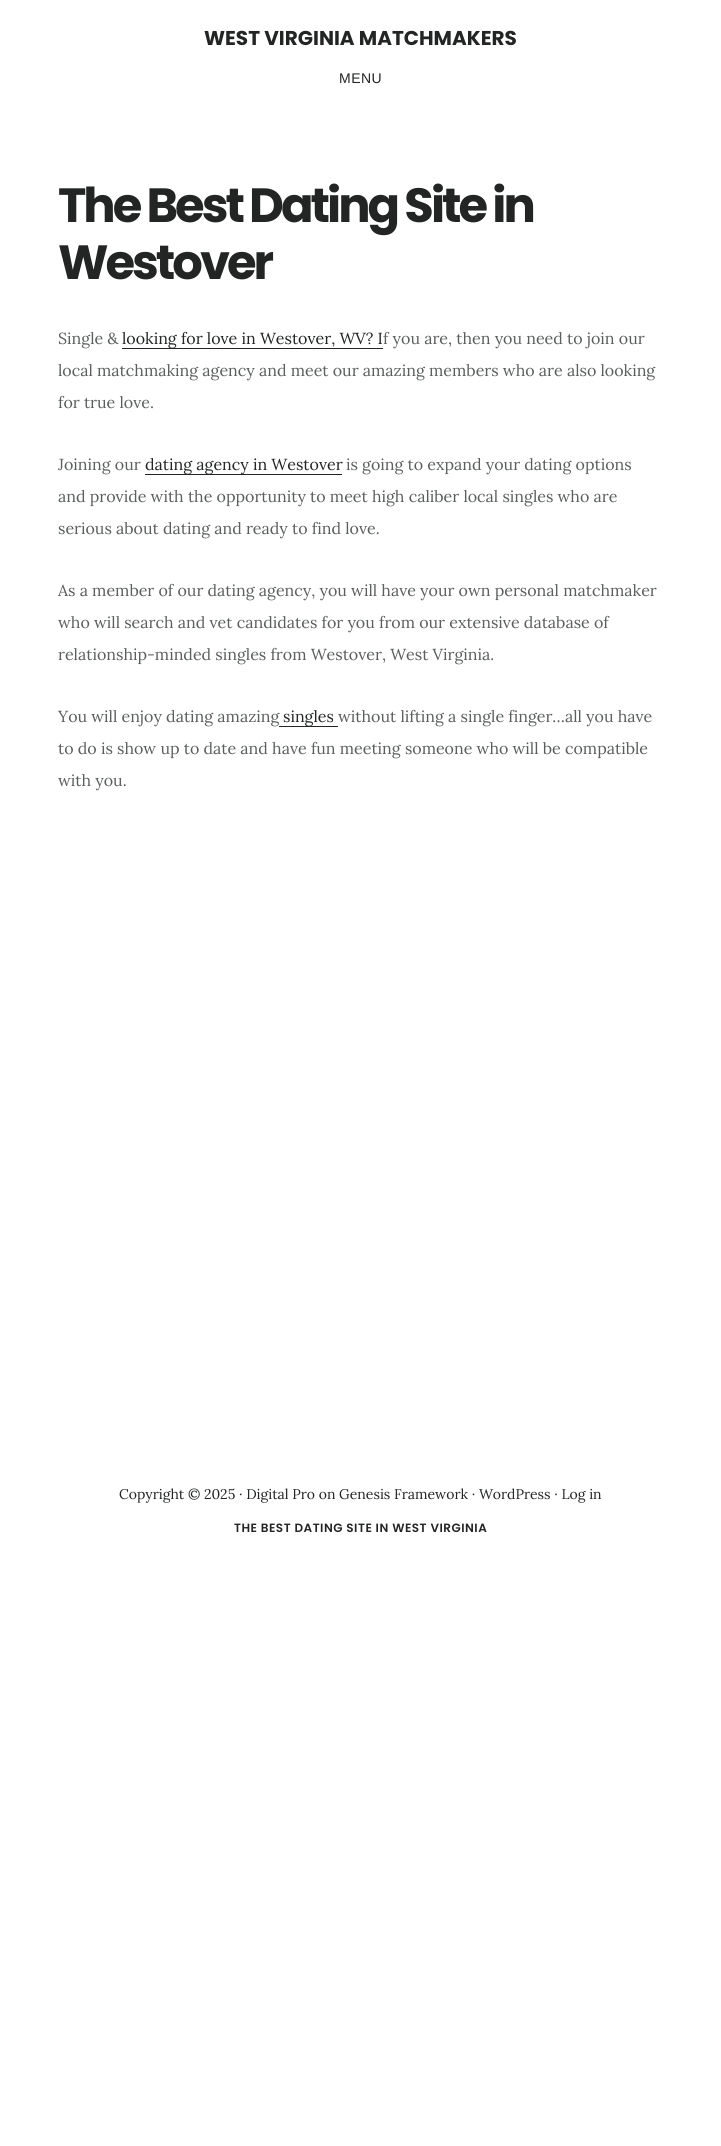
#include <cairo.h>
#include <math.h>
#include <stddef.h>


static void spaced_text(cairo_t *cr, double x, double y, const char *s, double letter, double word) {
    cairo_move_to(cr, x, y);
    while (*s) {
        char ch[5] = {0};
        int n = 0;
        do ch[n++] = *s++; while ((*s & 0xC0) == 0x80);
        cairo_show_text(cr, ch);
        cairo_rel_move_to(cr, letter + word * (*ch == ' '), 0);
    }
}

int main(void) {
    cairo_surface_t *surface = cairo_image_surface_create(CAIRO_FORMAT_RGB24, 721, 2146);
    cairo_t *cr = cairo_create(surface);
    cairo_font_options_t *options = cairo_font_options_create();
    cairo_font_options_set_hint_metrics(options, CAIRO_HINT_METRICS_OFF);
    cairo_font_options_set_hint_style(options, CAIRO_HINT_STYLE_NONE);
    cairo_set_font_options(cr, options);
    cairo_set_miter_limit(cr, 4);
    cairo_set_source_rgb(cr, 1, 1, 1);
    cairo_paint(cr);
    cairo_select_font_face(cr, "Poppins", CAIRO_FONT_SLANT_NORMAL, CAIRO_FONT_WEIGHT_BOLD);
    cairo_set_font_size(cr, 20);
    cairo_set_source_rgb(cr, 0.137, 0.145, 0.145);
    cairo_move_to(cr, 204, 45);
    cairo_show_text(cr, "WEST VIRGINIA MATCHMAKERS");
    cairo_select_font_face(cr, "Liberation Sans", CAIRO_FONT_SLANT_NORMAL, CAIRO_FONT_WEIGHT_NORMAL);
    cairo_set_font_size(cr, 14);
    spaced_text(cr, 339, 83, "MENU", 0.5, 0);
    cairo_select_font_face(cr, "Poppins", CAIRO_FONT_SLANT_NORMAL, CAIRO_FONT_WEIGHT_BOLD);
    cairo_set_font_size(cr, 48);
    spaced_text(cr, 58, 222, "The Best Dating Site in", -3, 0);
    spaced_text(cr, 58, 279, "Westover", -3, 0);
    cairo_select_font_face(cr, "Lora", CAIRO_FONT_SLANT_NORMAL, CAIRO_FONT_WEIGHT_NORMAL);
    cairo_set_font_size(cr, 16);
    cairo_set_source_rgb(cr, 0.357, 0.369, 0.369);
    cairo_move_to(cr, 58, 344);
    cairo_show_text(cr, "Single &");
    cairo_set_source_rgb(cr, 0.137, 0.145, 0.145);
    cairo_rectangle(cr, 122, 348, 261, 1);
    cairo_fill(cr);
    cairo_move_to(cr, 122, 344);
    cairo_show_text(cr, "looking for love in Westover, WV? I");
    cairo_set_source_rgb(cr, 0.357, 0.369, 0.369);
    cairo_move_to(cr, 383, 344);
    cairo_show_text(cr, "f you are, then you need to join our");
    cairo_move_to(cr, 58, 376);
    cairo_show_text(cr, "local matchmaking agency and meet our amazing members who are also looking");
    cairo_move_to(cr, 58, 408);
    cairo_show_text(cr, "for true love.");
    cairo_move_to(cr, 58, 470);
    cairo_show_text(cr, "Joining our");
    cairo_set_source_rgb(cr, 0.137, 0.145, 0.145);
    cairo_rectangle(cr, 145, 474, 197, 1);
    cairo_fill(cr);
    cairo_move_to(cr, 145, 470);
    cairo_show_text(cr, "dating agency in Westover");
    cairo_set_source_rgb(cr, 0.357, 0.369, 0.369);
    cairo_move_to(cr, 346, 470);
    cairo_show_text(cr, "is going to expand your dating options");
    cairo_move_to(cr, 58, 502);
    cairo_show_text(cr, "and provide with the opportunity to meet high caliber local singles who are");
    cairo_move_to(cr, 58, 534);
    cairo_show_text(cr, "serious about dating and ready to find love.");
    cairo_move_to(cr, 58, 596);
    cairo_show_text(cr, "As a member of our dating agency, you will have your own personal matchmaker");
    cairo_move_to(cr, 58, 628);
    cairo_show_text(cr, "who will search and vet candidates for you from our extensive database of");
    cairo_move_to(cr, 58, 660);
    cairo_show_text(cr, "relationship-minded singles from Westover, West Virginia.");
    cairo_move_to(cr, 58, 722);
    cairo_show_text(cr, "You will enjoy dating amazing");
    cairo_set_source_rgb(cr, 0.137, 0.145, 0.145);
    cairo_rectangle(cr, 279, 726, 59, 1);
    cairo_fill(cr);
    cairo_move_to(cr, 283, 722);
    cairo_show_text(cr, "singles");
    cairo_set_source_rgb(cr, 0.357, 0.369, 0.369);
    cairo_move_to(cr, 338, 722);
    cairo_show_text(cr, "without lifting a single finger…all you have");
    cairo_move_to(cr, 58, 754);
    cairo_show_text(cr, "to do is show up to date and have fun meeting someone who will be compatible");
    cairo_move_to(cr, 58, 786);
    cairo_show_text(cr, "with you.");
    cairo_set_font_size(cr, 14);
    cairo_set_source_rgb(cr, 0.137, 0.145, 0.145);
    cairo_move_to(cr, 119, 1499);
    cairo_show_text(cr, "Copyright © 2025 · Digital Pro on Genesis Framework · WordPress · Log in");
    cairo_select_font_face(cr, "Poppins SemiBold", CAIRO_FONT_SLANT_NORMAL, CAIRO_FONT_WEIGHT_NORMAL);
    cairo_set_font_size(cr, 12);
    spaced_text(cr, 234, 1532, "THE BEST DATING SITE IN WEST VIRGINIA", 0.5, 0);
    cairo_surface_write_to_png(surface, "page.png");
    cairo_font_options_destroy(options);
    cairo_destroy(cr);
    cairo_surface_destroy(surface);
    return 0;
}
